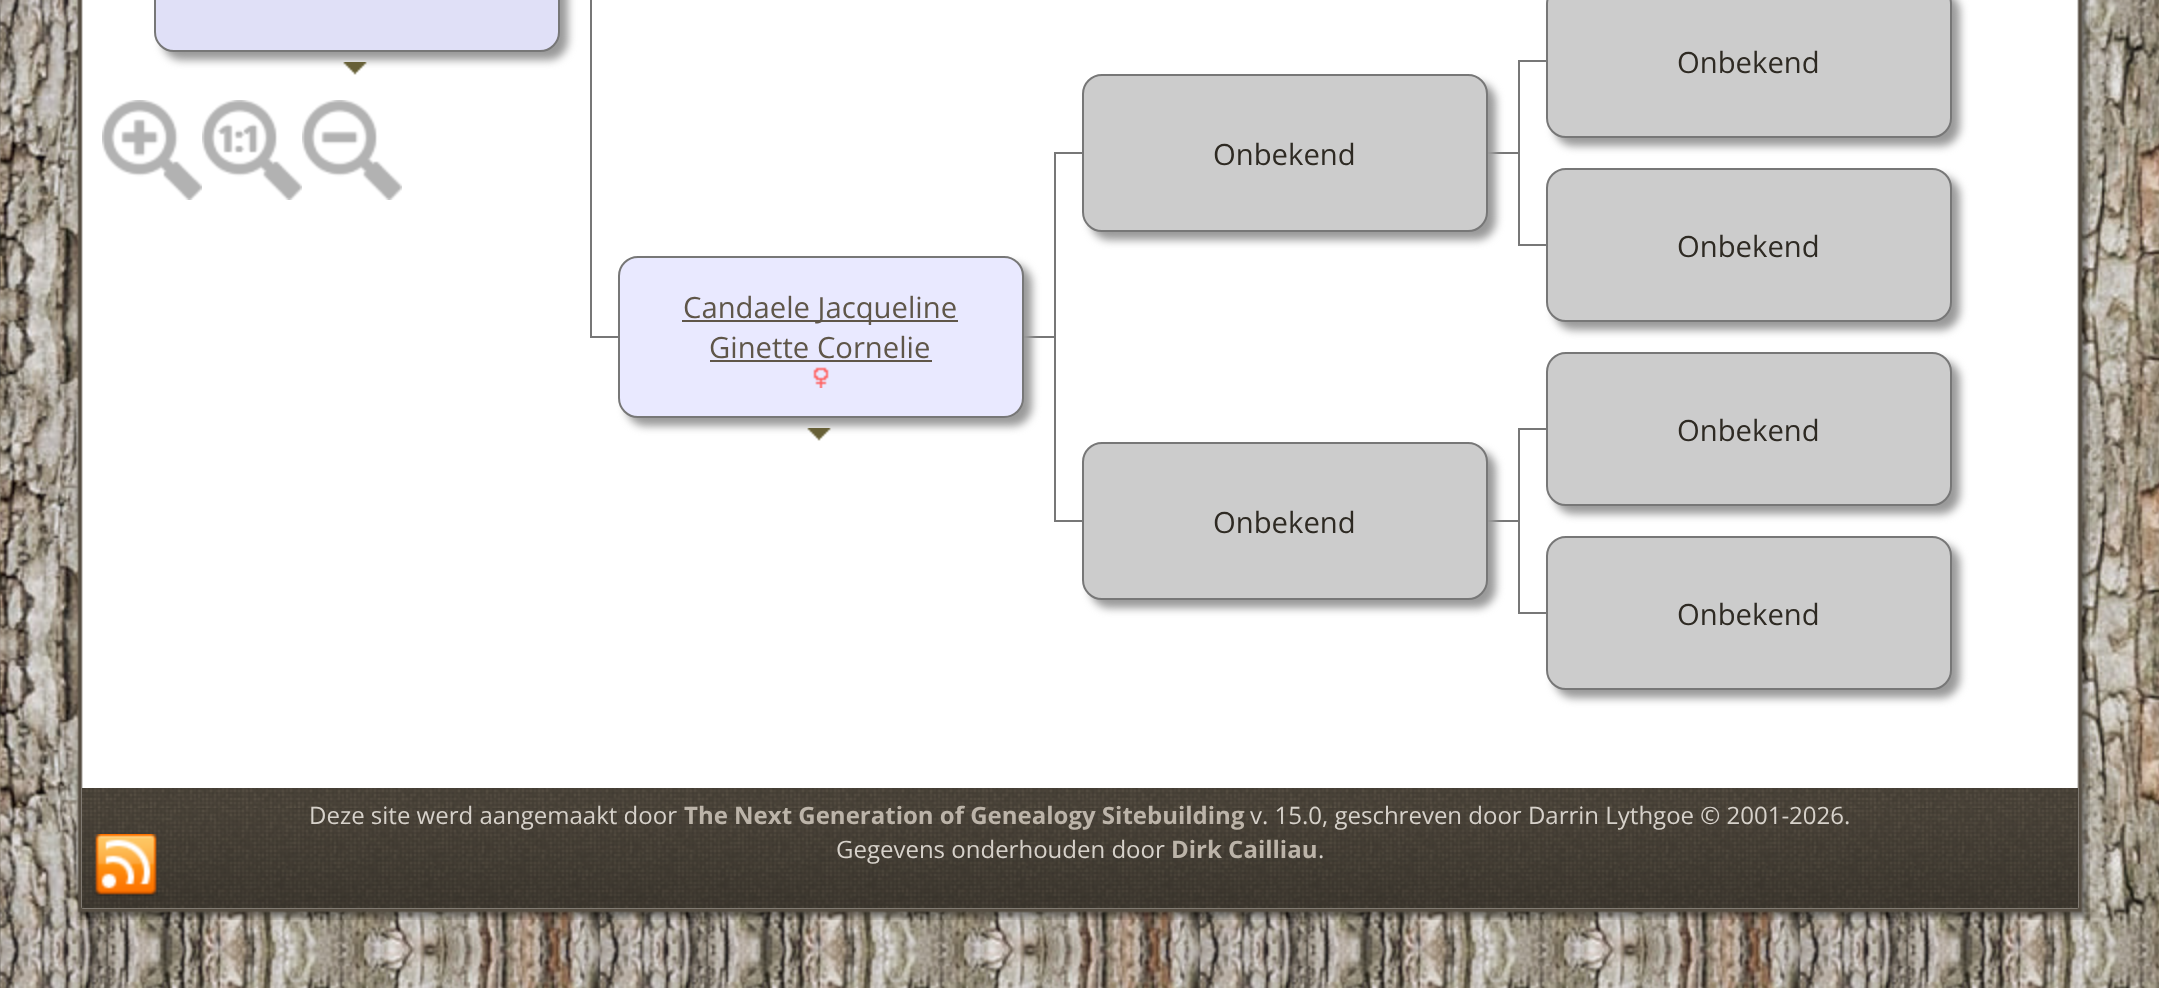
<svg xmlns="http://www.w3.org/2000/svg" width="2159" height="988">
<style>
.a{font:29.25px Open Sans;fill:#2e2a23}
.b{font:29.25px Open Sans;fill:#5f5649}
.c{font:24px Open Sans;fill:#d7d2cb}
.d{font:bold 24px Open Sans;fill:#bcb4a9}
</style>
<rect width="100%" height="100%" fill="#fff"/>
<image href="1.png" x="0" y="0" width="2159" height="988"/>
<image href="2.png" x="75" y="0" width="31" height="884"/>
<path fill="#fff" d="M106 0h1948v788H106z"/>
<image href="3.png" x="2054" y="0" width="36" height="884"/>
<image href="4.png" x="102" y="100" width="100" height="100"/>
<image href="5.png" x="202" y="100" width="100" height="100"/>
<image href="6.png" x="302" y="100" width="100" height="100"/>
<rect fill="#999" filter="blur(4px)" x="162" y="-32" width="406" height="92" rx="20"/>
<rect fill="#e0e0f7" stroke="#777" stroke-width="2" x="155" y="-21" width="404" height="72" rx="19"/>
<image href="7.png" x="343" y="62" width="24" height="13"/>
<path fill="#777" d="M590 336h34v2H590z"/>
<path fill="#777" d="M590 0h2v338H590z"/>
<path fill="#777" d="M1518 60h34v2H1518z"/>
<rect fill="#999" filter="blur(4px)" x="1554" y="-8" width="406" height="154" rx="20"/>
<rect fill="#ccc" stroke="#777" stroke-width="2" x="1547" y="-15" width="404" height="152" rx="19"/>
<path fill="#777" d="M1054 152h34v2H1054z"/>
<path fill="#777" d="M1486 152h32v2H1486z"/>
<rect fill="#999" filter="blur(4px)" x="1090" y="82" width="406" height="158" rx="20"/>
<rect fill="#ccc" stroke="#777" stroke-width="2" x="1083" y="75" width="404" height="156" rx="19"/>
<path fill="#777" d="M1518 60h2v94H1518z"/>
<path fill="#777" d="M1054 152h2v186H1054z"/>
<path fill="#777" d="M1518 244h34v2H1518z"/>
<path fill="#777" d="M1518 154h2v92H1518z"/>
<rect fill="#999" filter="blur(4px)" x="1554" y="176" width="406" height="154" rx="20"/>
<rect fill="#ccc" stroke="#777" stroke-width="2" x="1547" y="169" width="404" height="152" rx="19"/>
<path fill="#777" d="M1022 336h32v2H1022z"/>
<rect fill="#999" filter="blur(4px)" x="626" y="264" width="406" height="162" rx="20"/>
<rect fill="#e9e9ff" stroke="#777" stroke-width="2" x="619" y="257" width="404" height="160" rx="19"/>
<path fill="#5f5649" d="M682 320h276v2H682z"/>
<path fill="#5f5649" d="M710 360h222v2H710z"/>
<image href="8.png" x="813" y="367" width="16" height="21"/>
<image href="7.png" x="807" y="428" width="24" height="13"/>
<path fill="#777" d="M1054 520h34v2H1054z"/>
<path fill="#777" d="M1054 338h2v184H1054z"/>
<path fill="#777" d="M1518 428h34v2H1518z"/>
<rect fill="#999" filter="blur(4px)" x="1554" y="360" width="406" height="154" rx="20"/>
<rect fill="#ccc" stroke="#777" stroke-width="2" x="1547" y="353" width="404" height="152" rx="19"/>
<path fill="#777" d="M1486 520h32v2H1486z"/>
<rect fill="#999" filter="blur(4px)" x="1090" y="450" width="406" height="158" rx="20"/>
<rect fill="#ccc" stroke="#777" stroke-width="2" x="1083" y="443" width="404" height="156" rx="19"/>
<path fill="#777" d="M1518 428h2v94H1518z"/>
<path fill="#777" d="M1518 612h34v2H1518z"/>
<path fill="#777" d="M1518 522h2v92H1518z"/>
<rect fill="#999" filter="blur(4px)" x="1554" y="544" width="406" height="154" rx="20"/>
<rect fill="#ccc" stroke="#777" stroke-width="2" x="1547" y="537" width="404" height="152" rx="19"/>
<image href="9.png" x="82" y="788" width="1996" height="20"/>
<image href="12.png" x="75" y="884" width="31" height="36"/>
<image href="14.png" x="2054" y="884" width="36" height="36"/>
<image href="11.png" x="82" y="808" width="1996" height="100"/>
<image href="10.png" x="94" y="834" width="64" height="62"/>
<image href="13.png" x="106" y="908" width="1948" height="12"/>
<text class="a" x="1677" y="73">Onbekend</text>
<text class="a" x="1213" y="165">Onbekend</text>
<text class="a" x="1677" y="257">Onbekend</text>
<text class="b" x="683" y="318">Candaele Jacqueline</text>
<text class="b" x="709" y="358">Ginette Cornelie</text>
<text class="a" x="1677" y="441">Onbekend</text>
<text class="a" x="1213" y="533">Onbekend</text>
<text class="a" x="1677" y="625">Onbekend</text>
<text class="c" x="309" y="824">Deze site werd aangemaakt door</text>
<text class="d" x="684" y="824">The Next Generation of Genealogy Sitebuilding</text>
<text class="c" x="1250" y="824">v. 15.0, geschreven door Darrin Lythgoe © 2001-2026.</text>
<text class="c" x="836" y="858">Gegevens onderhouden door</text>
<text class="d" x="1171" y="858">Dirk Cailliau</text>
<text class="c" x="1318" y="858">.</text>
</svg>
